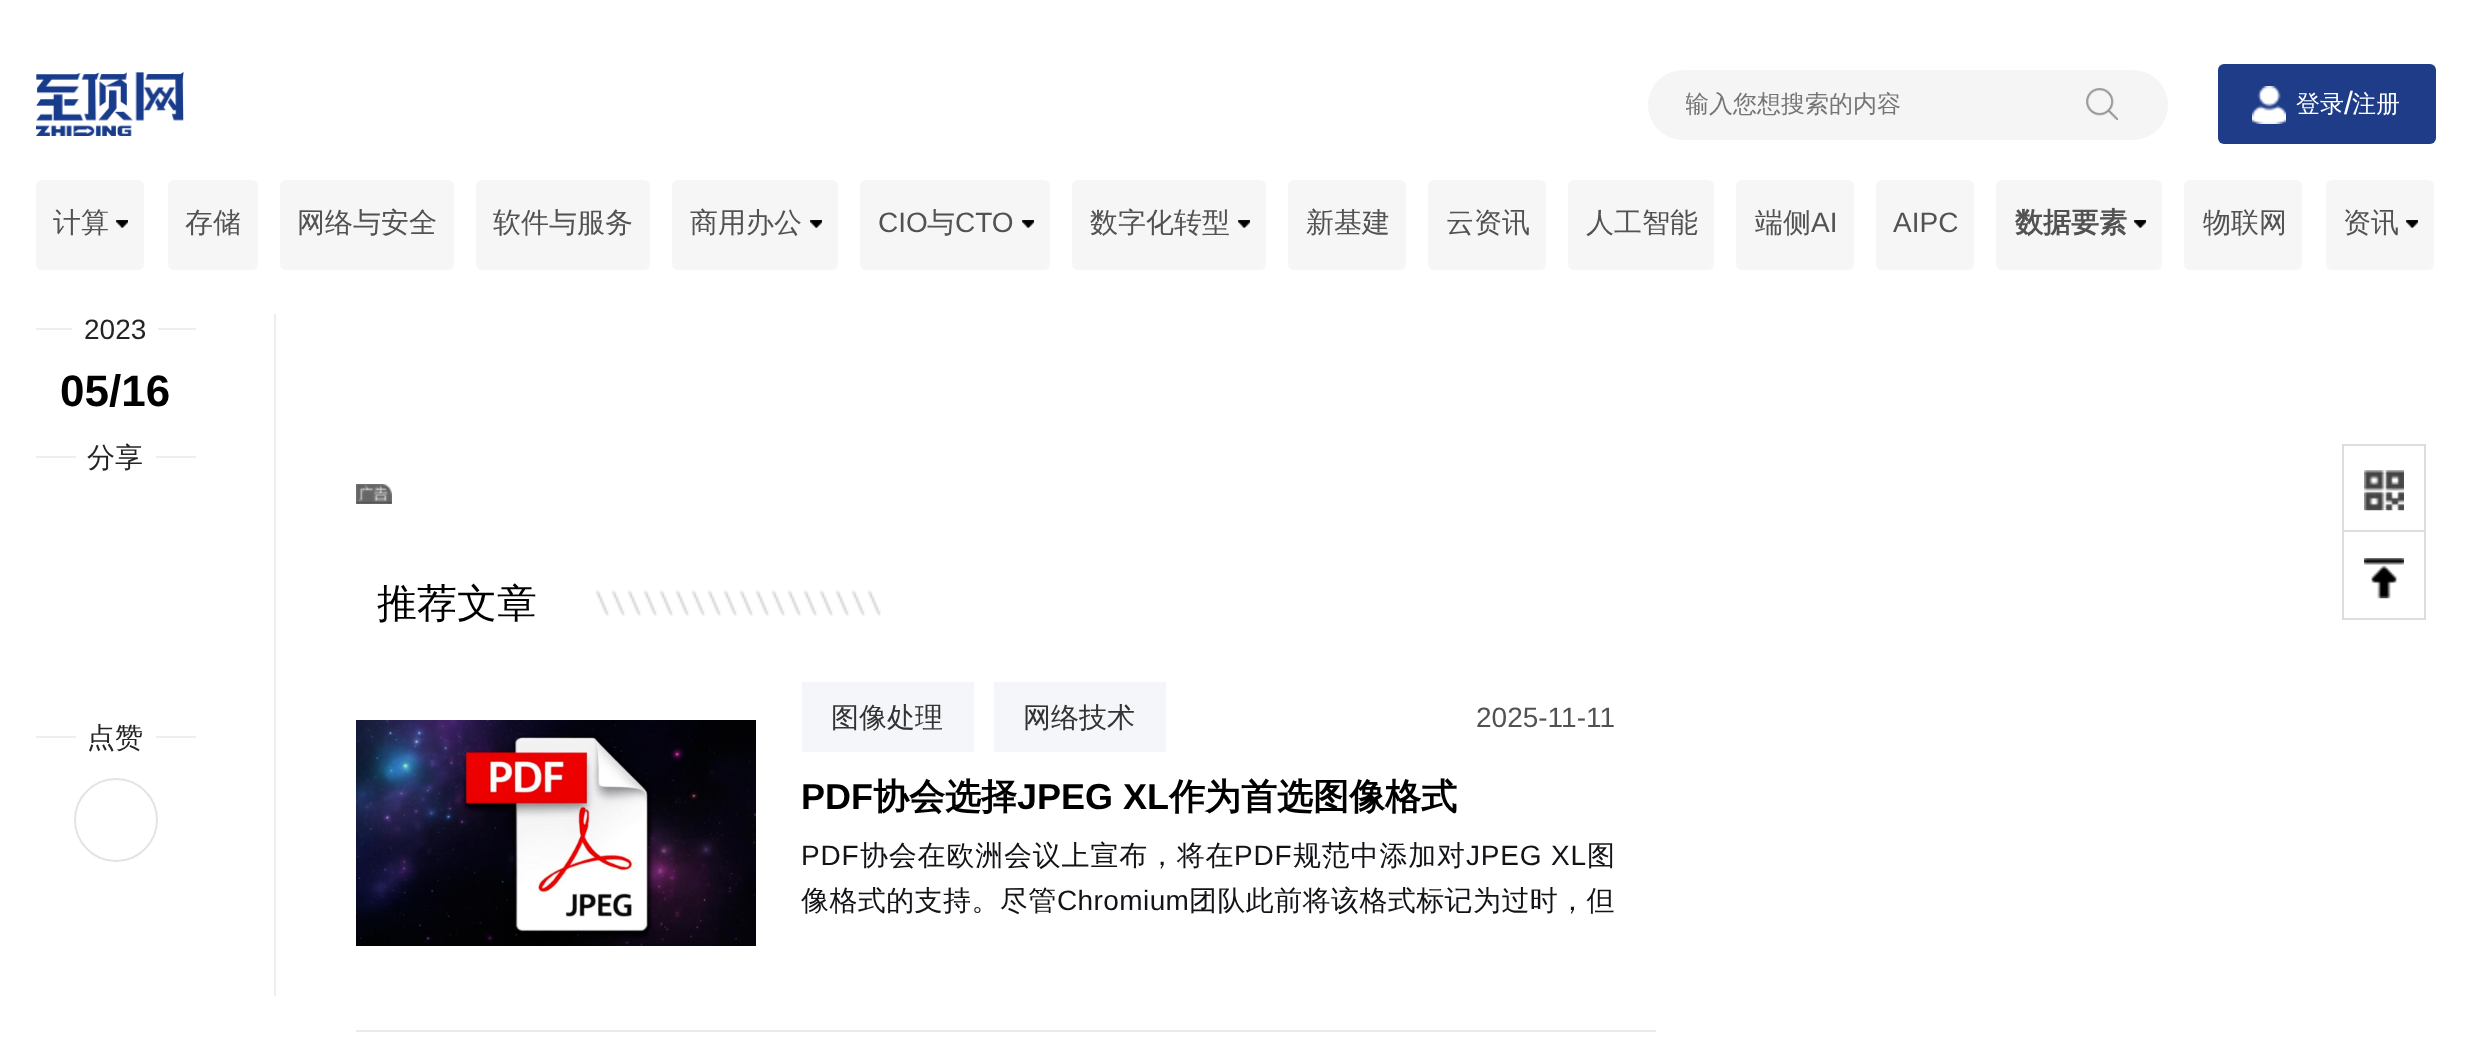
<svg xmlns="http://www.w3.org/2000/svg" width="2470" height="1064">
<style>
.a{font:500 24px WenQuanYi Zen Hei;fill:#757575}
.b{font:500 24px WenQuanYi Zen Hei;fill:#fff}
.c{font:32px Liberation Sans;fill:#fff}
.d{font:500 28px WenQuanYi Zen Hei;fill:#525252}
.e{font:28px Liberation Sans;fill:#525252}
.f{font:bold 28px WenQuanYi Zen Hei;fill:#525252}
.g{font:28px Liberation Sans;fill:#242424}
.h{font:bold 44px Liberation Sans;fill:#000}
.i{font:500 28px WenQuanYi Zen Hei;fill:#242424}
.j{font:500 40px WenQuanYi Zen Hei;fill:#000}
.k{font:500 28px WenQuanYi Zen Hei;fill:#333}
.l{font:bold 36px Liberation Sans;fill:#000}
.m{font:bold 36px WenQuanYi Zen Hei;fill:#000}
.n{font:28px Liberation Sans;letter-spacing:0.8px;fill:#121217}
.o{font:500 28px WenQuanYi Zen Hei;letter-spacing:0.8px;fill:#121217}
.p{font:500 28px WenQuanYi Zen Hei;letter-spacing:0.4px;fill:#121217}
.q{font:28px Liberation Sans;letter-spacing:0.4px;fill:#121217}
</style>
<defs>
<clipPath id="clip1"><path d="M1686 88h370v34H1686z"/></clipPath>
</defs>
<rect width="100%" height="100%" fill="#fff"/>
<image href="1.png" x="36" y="72" width="148" height="64"/>
<rect fill="#f5f5f5" x="1648" y="70" width="520" height="70" rx="35"/>
<image href="2.png" x="2086" y="88" width="32" height="32"/>
<rect fill="#1e3c87" x="2218" y="64" width="218" height="80" rx="6"/>
<image href="3.png" x="2252" y="86" width="34" height="38"/>
<rect fill="#f6f6f6" x="36" y="180" width="108" height="90" rx="6"/>
<image href="4.png" x="116" y="220" width="12" height="8"/>
<rect fill="#f6f6f6" x="168" y="180" width="90" height="90" rx="6"/>
<rect fill="#f6f6f6" x="280" y="180" width="174" height="90" rx="6"/>
<rect fill="#f6f6f6" x="476" y="180" width="174" height="90" rx="6"/>
<rect fill="#f6f6f6" x="672" y="180" width="166" height="90" rx="6"/>
<image href="5.png" x="810" y="220" width="12" height="8"/>
<rect fill="#f6f6f6" x="860" y="180" width="190" height="90" rx="6"/>
<image href="6.png" x="1022" y="220" width="12" height="8"/>
<rect fill="#f6f6f6" x="1072" y="180" width="194" height="90" rx="6"/>
<image href="6.png" x="1238" y="220" width="12" height="8"/>
<rect fill="#f6f6f6" x="1288" y="180" width="118" height="90" rx="6"/>
<rect fill="#f6f6f6" x="1428" y="180" width="118" height="90" rx="6"/>
<rect fill="#f6f6f6" x="1568" y="180" width="146" height="90" rx="6"/>
<rect fill="#f6f6f6" x="1736" y="180" width="118" height="90" rx="6"/>
<rect fill="#f6f6f6" x="1876" y="180" width="98" height="90" rx="6"/>
<rect fill="#f6f6f6" x="1996" y="180" width="166" height="90" rx="6"/>
<image href="5.png" x="2134" y="220" width="12" height="8"/>
<rect fill="#f6f6f6" x="2184" y="180" width="118" height="90" rx="6"/>
<rect fill="#f6f6f6" x="2326" y="180" width="108" height="90" rx="6"/>
<image href="6.png" x="2406" y="220" width="12" height="8"/>
<path fill="#eee" d="M274 314h2v682H274z"/>
<path fill="#eee" d="M36 328h160v2H36z"/>
<path fill="#fff" d="M72 328h86v2H72z"/>
<path fill="#eee" d="M36 456h160v2H36z"/>
<path fill="#fff" d="M76 456h80v2H76z"/>
<path fill="#eee" d="M36 736h160v2H36z"/>
<path fill="#fff" d="M76 736h80v2H76z"/>
<circle fill="none" stroke="#e3e4e4" stroke-width="2" cx="116" cy="820" r="41"/>
<image href="7.png" x="356" y="484" width="36" height="20"/>
<image href="8.png" x="596" y="590" width="285" height="26"/>
<path fill="#e7ecec" d="M356 1030h1300v2H356z"/>
<image href="9.png" x="356" y="720" width="400" height="226"/>
<path fill="#f5f6fa" d="M802 682h172v70H802z"/>
<path fill="#f5f6fa" d="M994 682h172v70H994z"/>
<path fill="none" stroke="#ddd" stroke-width="2" d="M2343 445h82v174H2343z"/>
<path fill="#ddd" d="M2344 530h80v2H2344z"/>
<image href="10.png" x="2364" y="470" width="40" height="41"/>
<image href="11.png" x="2364" y="558" width="40" height="41"/>
<g clip-path="url(#clip1)">
<text class="a" x="1685" y="112">输入您想搜索的内容</text>
</g>
<text class="b" x="2296" y="112">登录</text>
<text class="c" x="2344" y="114">/</text>
<text class="b" x="2352" y="112">注册</text>
<text class="d" x="53" y="232">计算</text>
<text class="d" x="185" y="232">存储</text>
<text class="d" x="297" y="232">网络与安全</text>
<text class="d" x="493" y="232">软件与服务</text>
<text class="d" x="690" y="232">商用办公</text>
<text class="e" x="878" y="232">CIO</text>
<text class="d" x="927" y="232">与</text>
<text class="e" x="955" y="232">CTO</text>
<text class="d" x="1090" y="232">数字化转型</text>
<text class="d" x="1306" y="232">新基建</text>
<text class="d" x="1446" y="232">云资讯</text>
<text class="d" x="1586" y="232">人工智能</text>
<text class="d" x="1755" y="232">端侧</text>
<text class="e" x="1811" y="232">AI</text>
<text class="e" x="1893" y="232">AIPC</text>
<text class="f" x="2015" y="232">数据要素</text>
<text class="d" x="2203" y="232">物联网</text>
<text class="d" x="2343" y="232">资讯</text>
<text class="g" x="84" y="339">2023</text>
<text class="h" x="60" y="406">05/16</text>
<text class="i" x="87" y="467">分享</text>
<text class="i" x="87" y="747">点赞</text>
<text class="j" x="377" y="617">推荐文章</text>
<text class="k" x="831" y="727">图像处理</text>
<text class="k" x="1023" y="727">网络技术</text>
<text class="e" x="1476" y="727">2025-11-11</text>
<text class="l" x="801" y="809">PDF</text>
<text class="m" x="873" y="809">协会选择</text>
<text class="l" x="1017" y="809">JPEG XL</text>
<text class="m" x="1169" y="809">作为首选图像格式</text>
<text class="n" x="801" y="865">PDF</text>
<text class="o" x="860" y="865">协会在欧洲会议上宣布，将在</text>
<text class="n" x="1234" y="865">PDF</text>
<text class="o" x="1293" y="865">规范中添加对</text>
<text class="n" x="1466" y="865">JPEG XL</text>
<text class="o" x="1587" y="865">图</text>
<text class="p" x="801" y="910">像格式的支持。尽管</text>
<text class="q" x="1057" y="910">Chromium</text>
<text class="p" x="1189" y="910">团队此前将该格式标记为过时，但</text>
</svg>
